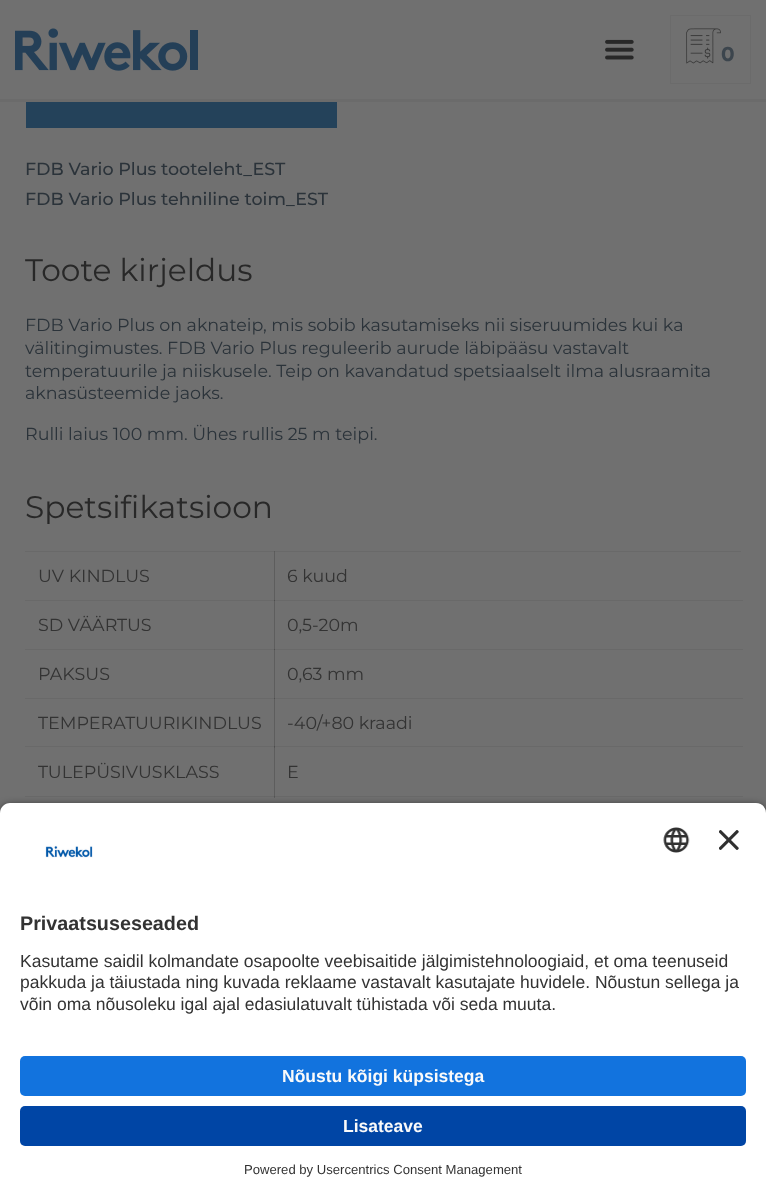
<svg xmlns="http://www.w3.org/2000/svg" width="766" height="1196">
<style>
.a{font:bold 20px Montserrat;fill:#3c454d}
.b{font:500 17.5px Montserrat;fill:#2b333a}
.c{font:31.25px Montserrat;fill:#282828}
.d{font:17.5px Montserrat;fill:#2b333a}
.e{font:17.5px Montserrat;fill:#333}
.f{font:bold 19.75px Liberation Sans;fill:#333}
.g{font:17.5px Liberation Sans;fill:#333}
.h{font:bold 17.5px Liberation Sans;fill:#fafafa}
.i{font:13.1px Liberation Sans;fill:#333}
</style>
<rect width="100%" height="100%" fill="#707070"/>
<path fill="#696969" d="M25 600h250v1H25z"/>
<path fill="#5d5d5d" d="M274 551h1v50H274z"/>
<path fill="#696969" d="M274 600h469v1H274z"/>
<path fill="#696969" d="M25 649h250v1H25z"/>
<path fill="#5d5d5d" d="M274 600h1v50H274z"/>
<path fill="#4d4d4d" d="M274 600h1v1H274z"/>
<path fill="#696969" d="M274 649h469v1H274z"/>
<path fill="#696969" d="M25 698h250v1H25z"/>
<path fill="#5d5d5d" d="M274 649h1v50H274z"/>
<path fill="#4d4d4d" d="M274 649h1v1H274z"/>
<path fill="#696969" d="M274 698h469v1H274z"/>
<path fill="#696969" d="M25 746h250v1H25z"/>
<path fill="#5d5d5d" d="M274 698h1v50H274z"/>
<path fill="#4d4d4d" d="M274 698h1v1H274z"/>
<path fill="#696969" d="M274 746h469v1H274z"/>
<path fill="#696969" d="M25 796h250v1H25z"/>
<path fill="#5d5d5d" d="M274 746h1v52H274z"/>
<path fill="#545454" d="M274 746h1v2H274z"/>
<path fill="#4d4d4d" d="M274 746h1v1H274z"/>
<path fill="#6b6b6b" d="M0 99h766v3H0z"/>
<image href="1.png" x="15" y="28" width="183" height="43"/>
<image href="2.png" x="605" y="39" width="29" height="21"/>
<path fill="none" stroke="#6b6b6b" d="M670.5 15.5h80v68H670.5z"/>
<image href="3.png" x="686" y="28" width="35" height="36"/>
<path fill="#24425a" d="M26 102h311v26H26z"/>
<path fill="#696969" d="M25 551h716v1H25z"/>
<path fill="#595959" d="M274 551h1v1H274z"/>
<path fill="#696969" d="M274 796h469v1H274z"/>
<path fill="#545454" d="M274 796h1v1H274z"/>
<rect fill="#000000cc" filter="blur(4.5px)" y="806" width="766" height="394" rx="10"/>
<path fill="#fff" d="M10 803h746c5.5 0 10 4.5 10 10v228h-766v-228c0-5.5 4.5-10 10-10z"/>
<image href="4.png" x="45" y="845" width="48" height="13"/>
<image href="5.png" x="663" y="827" width="27" height="26"/>
<image href="6.png" x="719" y="830" width="20" height="20"/>
<path fill="#fff" d="M0 1041h766v155H0z"/>
<rect fill="#1273de" x="20" y="1056" width="726" height="40" rx="5"/>
<rect fill="#0045a5" x="20" y="1106" width="726" height="40" rx="5"/>
<text class="a" x="721" y="61">0</text>
<text class="b" x="25" y="175">FDB Vario Plus tooteleht_EST</text>
<text class="b" x="25" y="205">FDB Vario Plus tehniline toim_EST</text>
<text class="c" x="25" y="281">Toote kirjeldus</text>
<text class="d" x="25" y="331">FDB Vario Plus on aknateip, mis sobib kasutamiseks nii siseruumides kui ka</text>
<text class="d" x="25" y="354">välitingimustes. FDB Vario Plus reguleerib aurude läbipääsu vastavalt</text>
<text class="d" x="25" y="377">temperatuurile ja niiskusele. Teip on kavandatud spetsiaalselt ilma alusraamita</text>
<text class="d" x="25" y="399">aknasüsteemide jaoks.</text>
<text class="d" x="25" y="440">Rulli laius 100 mm. Ühes rullis 25 m teipi.</text>
<text class="c" x="25" y="518">Spetsifikatsioon</text>
<text class="e" x="38" y="582">UV KINDLUS</text>
<text class="e" x="287" y="582">6 kuud</text>
<text class="e" x="38" y="631">SD VÄÄRTUS</text>
<text class="e" x="287" y="631">0,5-20m</text>
<text class="e" x="38" y="680">PAKSUS</text>
<text class="e" x="287" y="680">0,63 mm</text>
<text class="e" x="38" y="729">TEMPERATUURIKINDLUS</text>
<text class="e" x="287" y="729">-40/+80 kraadi</text>
<text class="e" x="38" y="778">TULEPÜSIVUSKLASS</text>
<text class="e" x="287" y="778">E</text>
<text class="f" x="20" y="930">Privaatsuseseaded</text>
<text class="g" x="20" y="967">Kasutame saidil kolmandate osapoolte veebisaitide jälgimistehnoloogiaid, et oma teenuseid</text>
<text class="g" x="20" y="988">pakkuda ja täiustada ning kuvada reklaame vastavalt kasutajate huvidele. Nõustun sellega ja</text>
<text class="g" x="20" y="1010">võin oma nõusoleku igal ajal edasiulatuvalt tühistada või seda muuta.</text>
<text class="h" x="282" y="1082">Nõustu kõigi küpsistega</text>
<text class="h" x="343" y="1132">Lisateave</text>
<text class="i" x="244" y="1174">Powered by Usercentrics Consent Management</text>
</svg>
